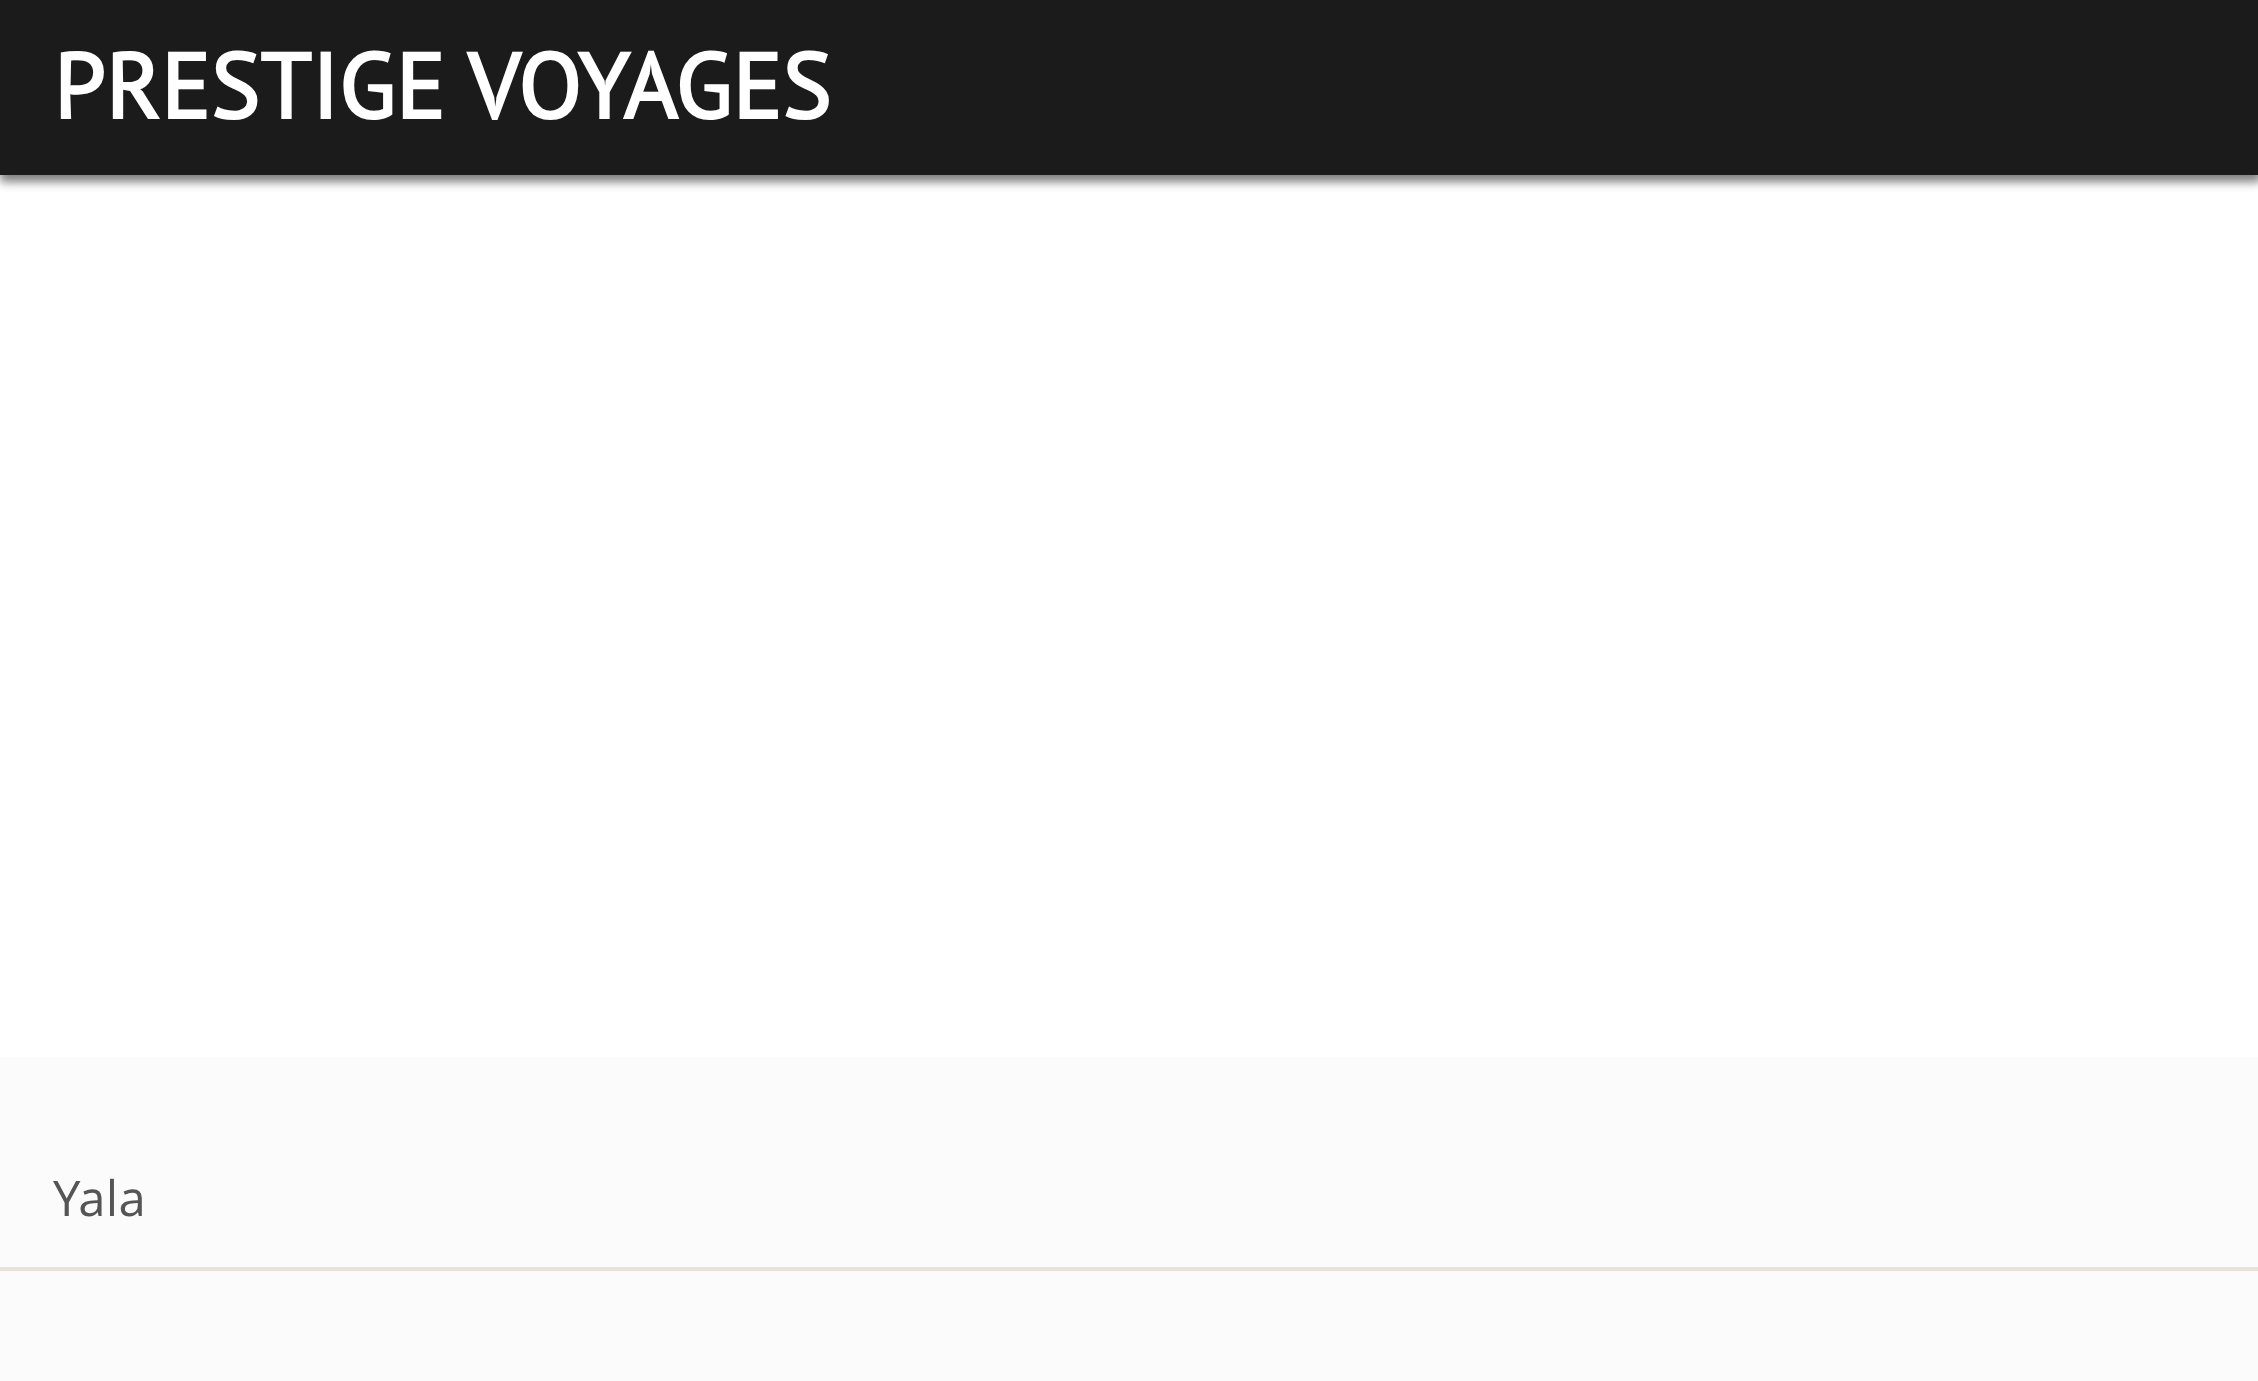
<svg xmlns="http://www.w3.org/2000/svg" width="2258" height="1381">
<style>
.a{font:bold 92.5px PT Sans;letter-spacing:0.25px;fill:#fff}
.b{font:49px Open Sans;letter-spacing:0.25px;fill:#555}
</style>
<rect width="100%" height="100%" fill="#fbfbfb"/>
<path fill="#fff" d="M0 175h2258v882H0z"/>
<path fill="#00000080" filter="blur(5px)" d="M0 7h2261v175H0z"/>
<path fill="#1b1b1b" d="M0 0h2258v175H0z"/>
<path fill="#e7e2d8" d="M0 1267h2258v4H0z"/>
<text class="a" x="53" y="119">PRESTIGE VOYAGES</text>
<text class="b" x="53" y="1216">Yala</text>
</svg>
